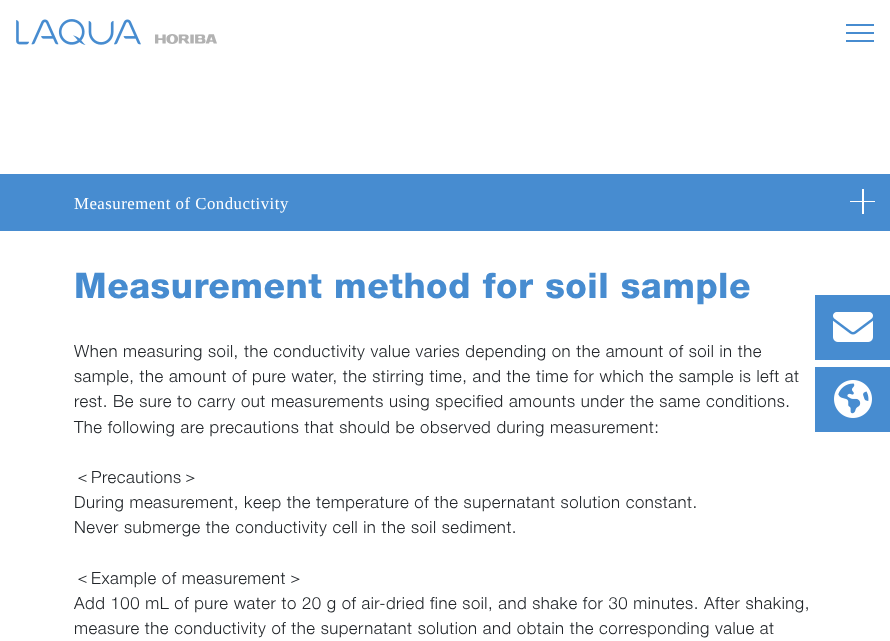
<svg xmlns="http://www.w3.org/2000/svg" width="890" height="641">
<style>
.a{font:16.8px Liberation Serif;letter-spacing:0.5px;fill:#fff}
.b{font:bold 35.25px Helvetica Neue;letter-spacing:0.5px;fill:#478cd0}
.c{font:300 16.8px Helvetica Neue;letter-spacing:0.5px;fill:#212529}
.d{font:500 16.8px WenQuanYi Zen Hei;letter-spacing:0.5px;fill:#212529}
</style>
<rect width="100%" height="100%" fill="#fff"/>
<image href="1.png" x="16" y="19" width="125" height="26"/>
<image href="2.png" x="155" y="34" width="62" height="10"/>
<path fill="#478cd0" d="M846 24h28v2H846z"/>
<path fill="#478cd0" d="M846 40h28v2H846z"/>
<path fill="#478cd0" d="M846 32h28v2H846z"/>
<path fill="#478cd0" d="M0 174h890v57H0z"/>
<path fill="#fff" d="M850 201h25v1H850z"/>
<path fill="#fff" d="M862 189h2v25H862z"/>
<path fill="#478cd0" d="M815 295h75v65H815z"/>
<image href="3.png" x="833" y="312" width="40" height="30"/>
<path fill="#478cd0" d="M815 367h75v65H815z"/>
<image href="4.png" x="834" y="380" width="38" height="38"/>
<text class="a" x="74" y="209">Measurement of Conductivity</text>
<text class="b" x="74" y="298">Measurement method for soil sample</text>
<text class="c" x="74" y="357">When measuring soil, the conductivity value varies depending on the amount of soil in the</text>
<text class="c" x="74" y="382">sample, the amount of pure water, the stirring time, and the time for which the sample is left at</text>
<text class="c" x="74" y="407">rest. Be sure to carry out measurements using specified amounts under the same conditions.</text>
<text class="c" x="74" y="433">The following are precautions that should be observed during measurement:</text>
<text class="d" x="74" y="483">＜</text>
<text class="c" x="91" y="483">Precautions</text>
<text class="d" x="182" y="483">＞</text>
<text class="c" x="74" y="508">During measurement, keep the temperature of the supernatant solution constant.</text>
<text class="c" x="74" y="533">Never submerge the conductivity cell in the soil sediment.</text>
<text class="d" x="74" y="584">＜</text>
<text class="c" x="91" y="584">Example of measurement</text>
<text class="d" x="287" y="584">＞</text>
<text class="c" x="74" y="609">Add 100 mL of pure water to 20 g of air-dried fine soil, and shake for 30 minutes. After shaking,</text>
<text class="c" x="74" y="634">measure the conductivity of the supernatant solution and obtain the corresponding value at</text>
</svg>
